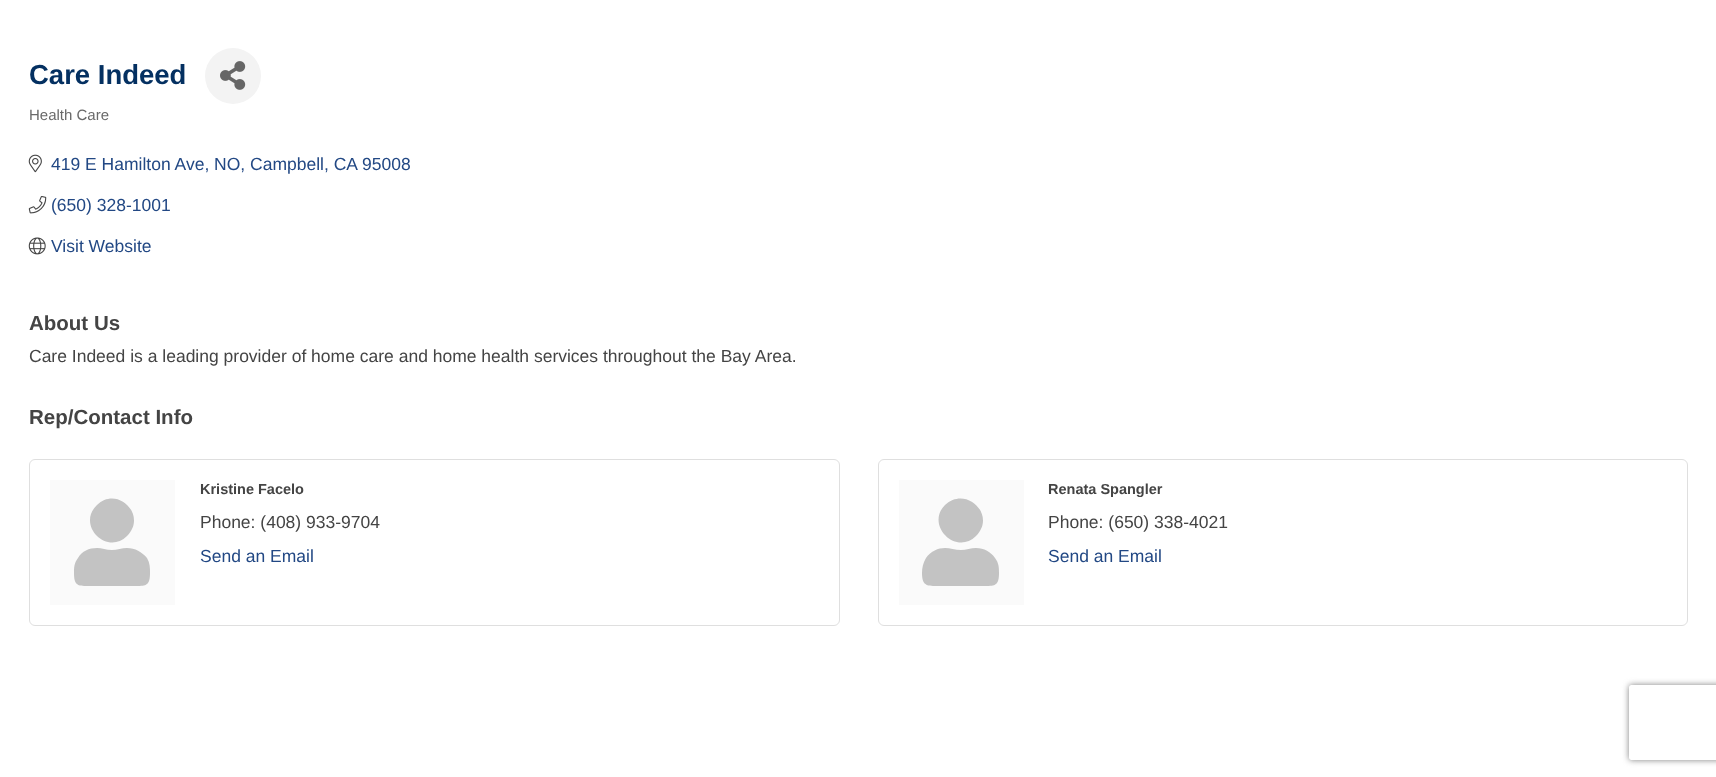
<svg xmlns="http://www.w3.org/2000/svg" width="1716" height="777">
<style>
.a{font:bold 27.5px Liberation Sans;fill:#043061}
.b{font:15px Liberation Sans;fill:#696969}
.c{font:17.5px Liberation Sans;fill:#224884}
.d{font:bold 20.5px Liberation Sans;fill:#444}
.e{font:17.5px Liberation Sans;fill:#444}
.f{font:bold 14.5px Liberation Sans;fill:#444}
</style>
<defs>
<clipPath id="clip1"><path d="M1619 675h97v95h-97zm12.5 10h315c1.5 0 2.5 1 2.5 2.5v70c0 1.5-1 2.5-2.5 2.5h-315c-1.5 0-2.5-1-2.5-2.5v-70c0-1.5 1-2.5 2.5-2.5z" clip-rule="evenodd"/></clipPath>
</defs>
<rect width="100%" height="100%" fill="#fff"/>
<circle fill="#f3f3f3" cx="233" cy="76" r="28"/>
<image href="1.png" x="220" y="61" width="26" height="29"/>
<image href="2.png" x="28" y="154" width="14" height="19"/>
<image href="3.png" x="28" y="196" width="19" height="18"/>
<image href="4.png" x="28" y="237" width="18" height="18"/>
<rect fill="none" stroke="#dfdfdf" x="29.5" y="459.5" width="810" height="166" rx="5.5"/>
<path fill="#fafafa" d="M50 480h125v125H50z"/>
<path fill="#c3c3c3" d="M127 536c-20 20-51-11-30-31c20-20 51 10 30 31zm0 12c8 0 15 4 20 10c3 5 3 10 3 15c0 14-5 13-18 13h-40c-13 0-18 1-18-13c0-5 0-10 4-15c4-7 11-10 19-10c5 0 9 2 15 2c5 0 10-2 15-2z"/>
<rect fill="none" stroke="#dfdfdf" x="878.5" y="459.5" width="809" height="166" rx="5.5"/>
<path fill="#fafafa" d="M899 480h125v125H899z"/>
<path fill="#c3c3c3" d="M976 536c-20 20-51-11-31-31c21-20 52 10 31 31zm0 12c8 0 15 4 19 10c4 5 4 10 4 15c0 14-5 13-18 13h-40c-13 0-19 1-19-13c0-5 1-10 4-15c5-7 12-10 19-10c5 0 10 2 16 2c5 0 10-2 15-2z"/>
<g clip-path="url(#clip1)">
<rect fill="#808080" filter="blur(3px)" x="1629" y="685" width="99" height="75" rx="2.5"/>
</g>
<text class="a" x="29" y="84">Care Indeed</text>
<text class="b" x="29" y="120">Health Care</text>
<text class="c" x="51" y="170">419 E Hamilton Ave, NO, Campbell, CA</text>
<text class="c" x="362" y="170">95008</text>
<text class="c" x="51" y="211">(650) 328-1001</text>
<text class="c" x="51" y="252">Visit Website</text>
<text class="d" x="29" y="330">About Us</text>
<text class="e" x="29" y="362">Care Indeed is a leading provider of home care and home health services throughout the Bay Area.</text>
<text class="d" x="29" y="424">Rep/Contact Info</text>
<text class="f" x="200" y="494">Kristine Facelo</text>
<text class="e" x="200" y="528">Phone: (408) 933-9704</text>
<text class="c" x="200" y="562">Send an Email</text>
<text class="f" x="1048" y="494">Renata Spangler</text>
<text class="e" x="1048" y="528">Phone: (650) 338-4021</text>
<text class="c" x="1048" y="562">Send an Email</text>
</svg>
